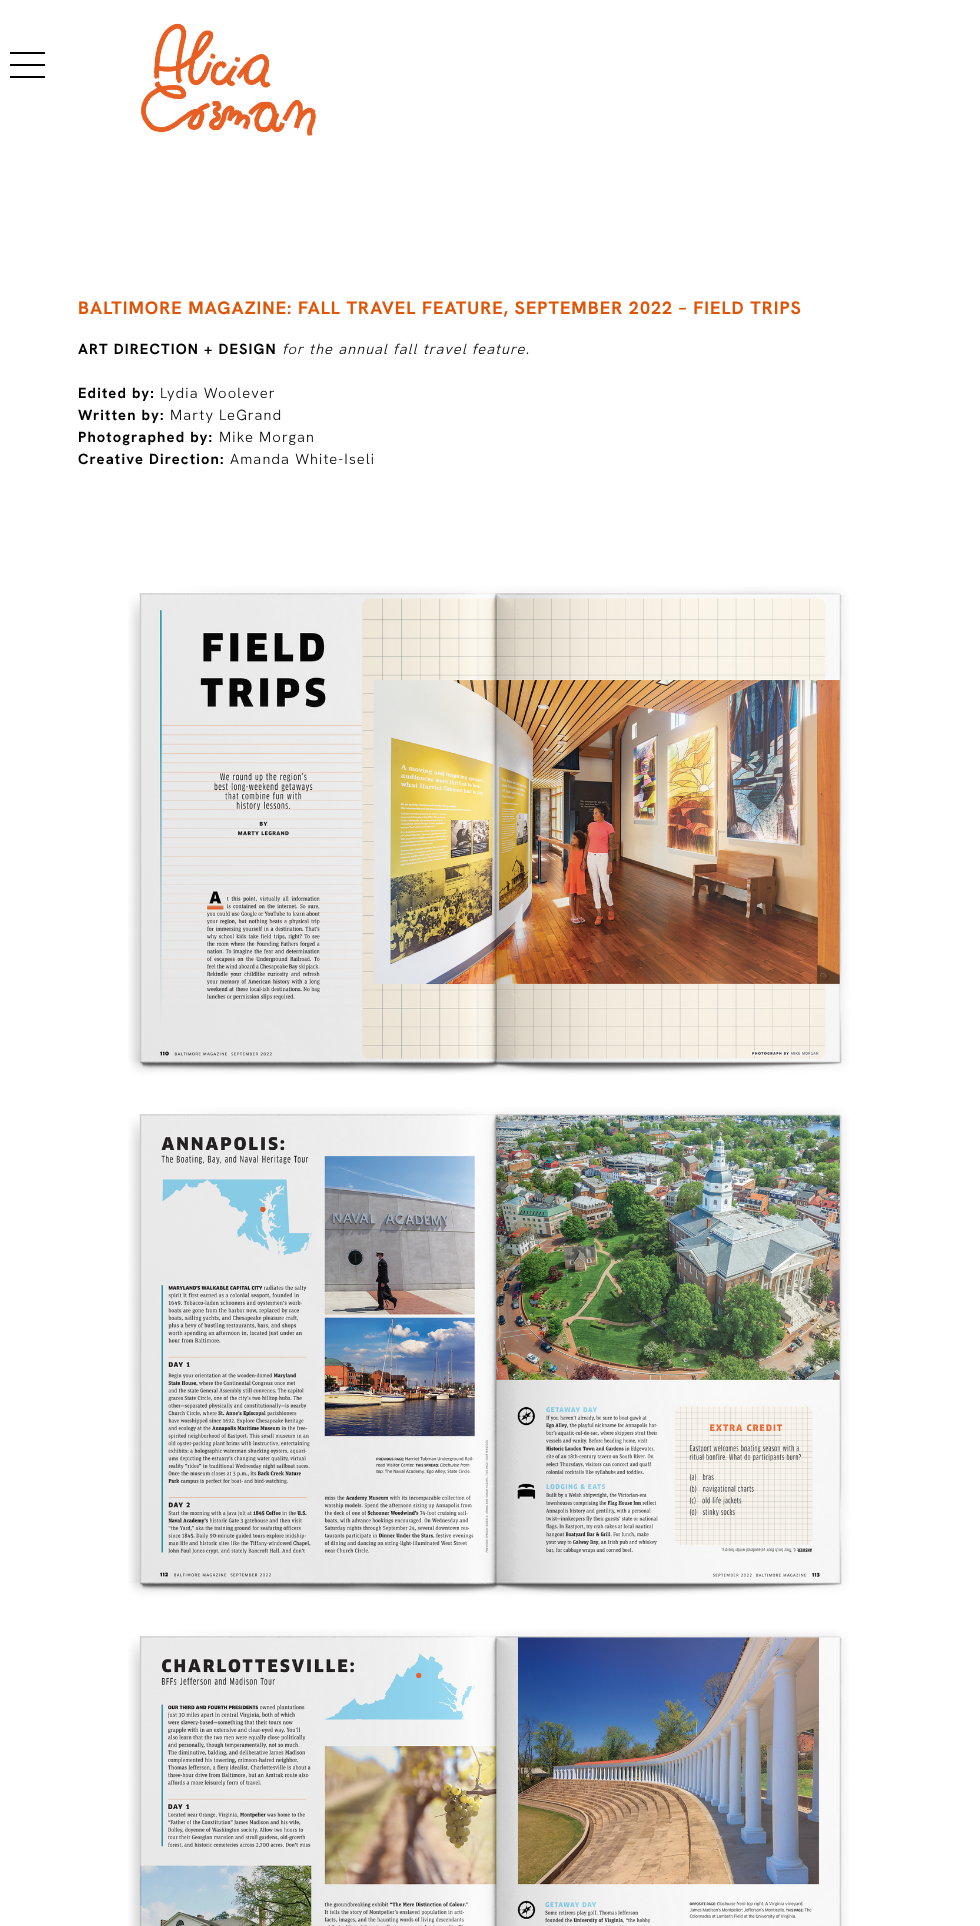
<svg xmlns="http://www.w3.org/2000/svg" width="980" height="1926">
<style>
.a{font:bold 18px Hanken Grotesk;letter-spacing:1px;fill:#e05406}
.b{font:bold 14.7px Hanken Grotesk;letter-spacing:1.15px;fill:#000}
.c{font:italic 300 14.7px Hanken Grotesk;letter-spacing:1.15px;fill:#000}
.d{font:300 14.7px Hanken Grotesk;letter-spacing:1.15px;fill:#000}
</style>
<rect width="100%" height="100%" fill="#fff"/>
<path fill="#000" d="M10 52h35v2H10z"/>
<path fill="#000" d="M10 64h35v2H10z"/>
<path fill="#000" d="M10 76h35v2H10z"/>
<image href="1.png" x="141" y="23" width="175" height="113"/>
<image href="2.png" x="128" y="586" width="722" height="489"/>
<image href="3.png" x="128" y="1107" width="722" height="489"/>
<image href="4.png" x="128" y="1629" width="721" height="297"/>
<text class="a" x="78" y="314">BALTIMORE MAGAZINE: FALL TRAVEL FEATURE, SEPTEMBER 2022 – FIELD TRIPS</text>
<text class="b" x="78" y="354">ART DIRECTION + DESIGN</text>
<text class="c" x="282" y="354">for the annual fall travel feature.</text>
<text class="b" x="78" y="398">Edited by:</text>
<text class="d" x="160" y="398">Lydia Woolever</text>
<text class="b" x="78" y="420">Written by:</text>
<text class="d" x="170" y="420">Marty LeGrand</text>
<text class="b" x="78" y="442">Photographed by:</text>
<text class="d" x="219" y="442">Mike Morgan</text>
<text class="b" x="78" y="464">Creative Direction:</text>
<text class="d" x="230" y="464">Amanda White-Iseli</text>
</svg>
